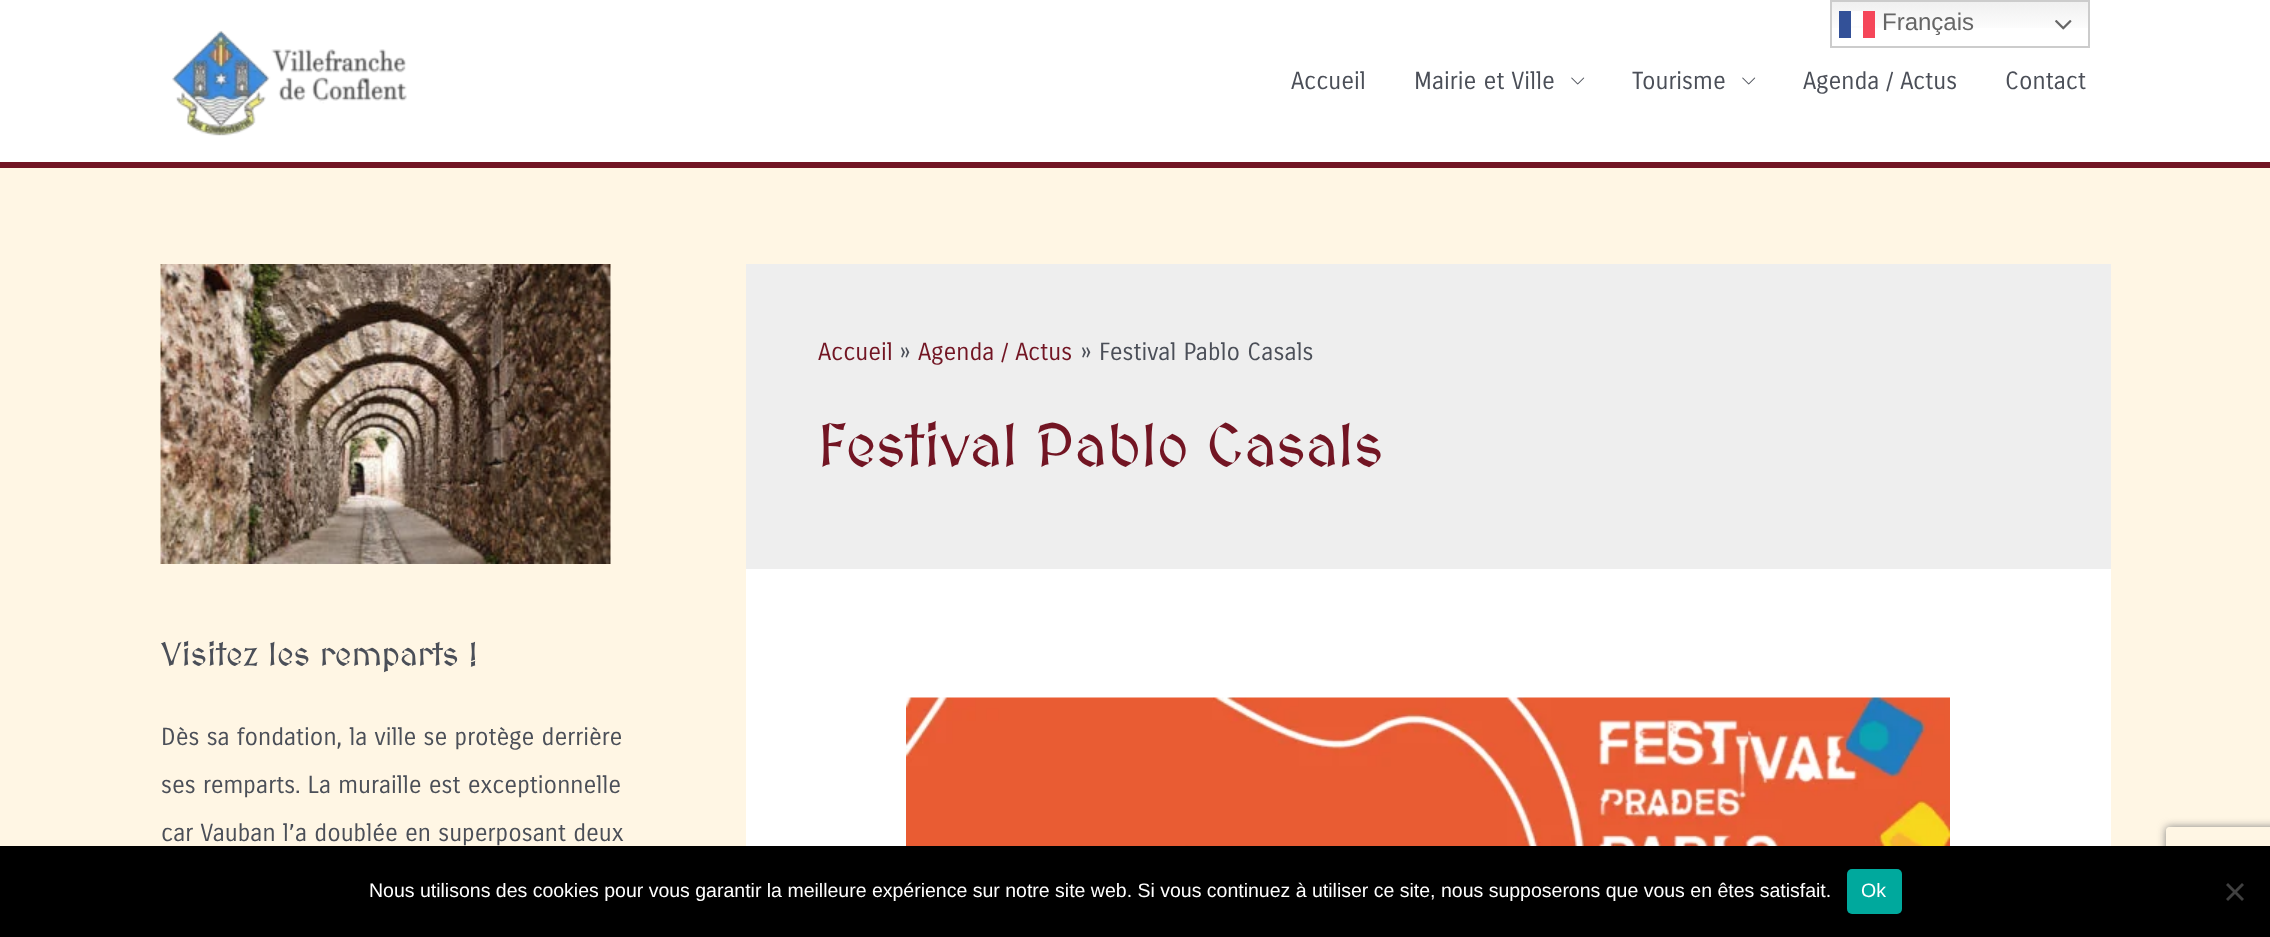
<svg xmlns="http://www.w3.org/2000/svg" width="2270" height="937">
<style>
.a{font:24px Liberation Sans;fill:#666}
.b{font:24px Carrois Gothic;fill:#4b4f58}
.c{font:24px Carrois Gothic;fill:#721523}
.d{font:500 60px MedievalSharp;fill:#721523}
.e{font:500 33px MedievalSharp;fill:#4b4f58}
.f{font:19.5px Liberation Sans;fill:#fff}
</style>
<defs>
<linearGradient id="g1" gradientUnits="userSpaceOnUse" x1="1960" y1="0" x2="1960" y2="48"><stop offset="0" stop-color="#efefef"/><stop offset="0.7" stop-color="#fff"/></linearGradient>
<linearGradient id="g2" gradientUnits="userSpaceOnUse" x1="1960" y1="0" x2="1960" y2="48"><stop offset="0" stop-color="#fcfcfc"/><stop offset="0.7" stop-color="#fff"/></linearGradient>
<clipPath id="clip1"><path d="M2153 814h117v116h-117zm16 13h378c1.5 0 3 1.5 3 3v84c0 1.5-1.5 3-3 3h-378c-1.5 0-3-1.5-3-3v-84c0-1.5 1.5-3 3-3z" clip-rule="evenodd"/></clipPath>
</defs>
<rect width="100%" height="100%" fill="#fff6e4"/>
<path fill="#fff" d="M0 0h2270v162H0z"/>
<path fill="url(#g1)" d="M1832 2h256v26H1832z"/>
<path fill="url(#g2)" d="M1851 11h12v15H1851z"/>
<path fill="none" stroke="#ccc" stroke-width="2" d="M1831 1h258v46H1831z"/>
<path fill="#335198" d="M1839 11h12v27H1839z"/>
<path fill="#f54659" d="M1863 11h12v27H1863z"/>
<image href="1.png" x="2055" y="20" width="17" height="10"/>
<path fill="#721523" d="M0 162h2270v6H0z"/>
<image href="2.png" x="172" y="30" width="235" height="106"/>
<image href="3.png" x="1571" y="77" width="14" height="8"/>
<image href="3.png" x="1742" y="77" width="14" height="8"/>
<path fill="#eee" d="M746 264h1365v305H746z"/>
<path fill="#fff" d="M746 569h1365v277H746z"/>
<image href="4.png" x="906" y="697" width="1044" height="149"/>
<image href="5.png" x="160" y="264" width="451" height="300"/>
<g clip-path="url(#clip1)">
<rect fill="#808080" filter="blur(4px)" x="2166" y="827" width="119" height="90" rx="3"/>
</g>
<path fill="#000" d="M0 846h2270v91H0z"/>
<rect fill="#00a99d" x="1847" y="869" width="55" height="45" rx="5"/>
<path fill="#404040" d="M2242 883l2 2l-16 16l-2-2z"/>
<path fill="#404040" d="M2226 885l2-2l16 16l-2 2z"/>
<text class="a" x="1882" y="30">Français</text>
<text class="b" x="1291" y="89">Accueil</text>
<text class="b" x="1414" y="89">Mairie et Ville</text>
<text class="b" x="1632" y="89">Tourisme</text>
<text class="b" x="1803" y="89">Agenda / Actus</text>
<text class="b" x="2005" y="89">Contact</text>
<text class="c" x="818" y="360">Accueil</text>
<text class="b" x="899" y="360">»</text>
<text class="c" x="918" y="360">Agenda / Actus</text>
<text class="b" x="1080" y="360">» Festival Pablo Casals</text>
<text class="d" x="818" y="467">Festival Pablo Casals</text>
<text class="e" x="161" y="666">Visitez les remparts !</text>
<text class="b" x="161" y="745">Dès sa fondation, la ville se protège derrière</text>
<text class="b" x="161" y="793">ses remparts. La muraille est exceptionnelle</text>
<text class="b" x="161" y="841">car Vauban l’a doublée en superposant deux</text>
<text class="f" x="369" y="897">Nous utilisons des cookies pour vous garantir la meilleure expérience sur notre site web. Si vous continuez à utiliser ce site, nous supposerons que vous en êtes satisfait.</text>
<text class="f" x="1861" y="897">Ok</text>
</svg>
